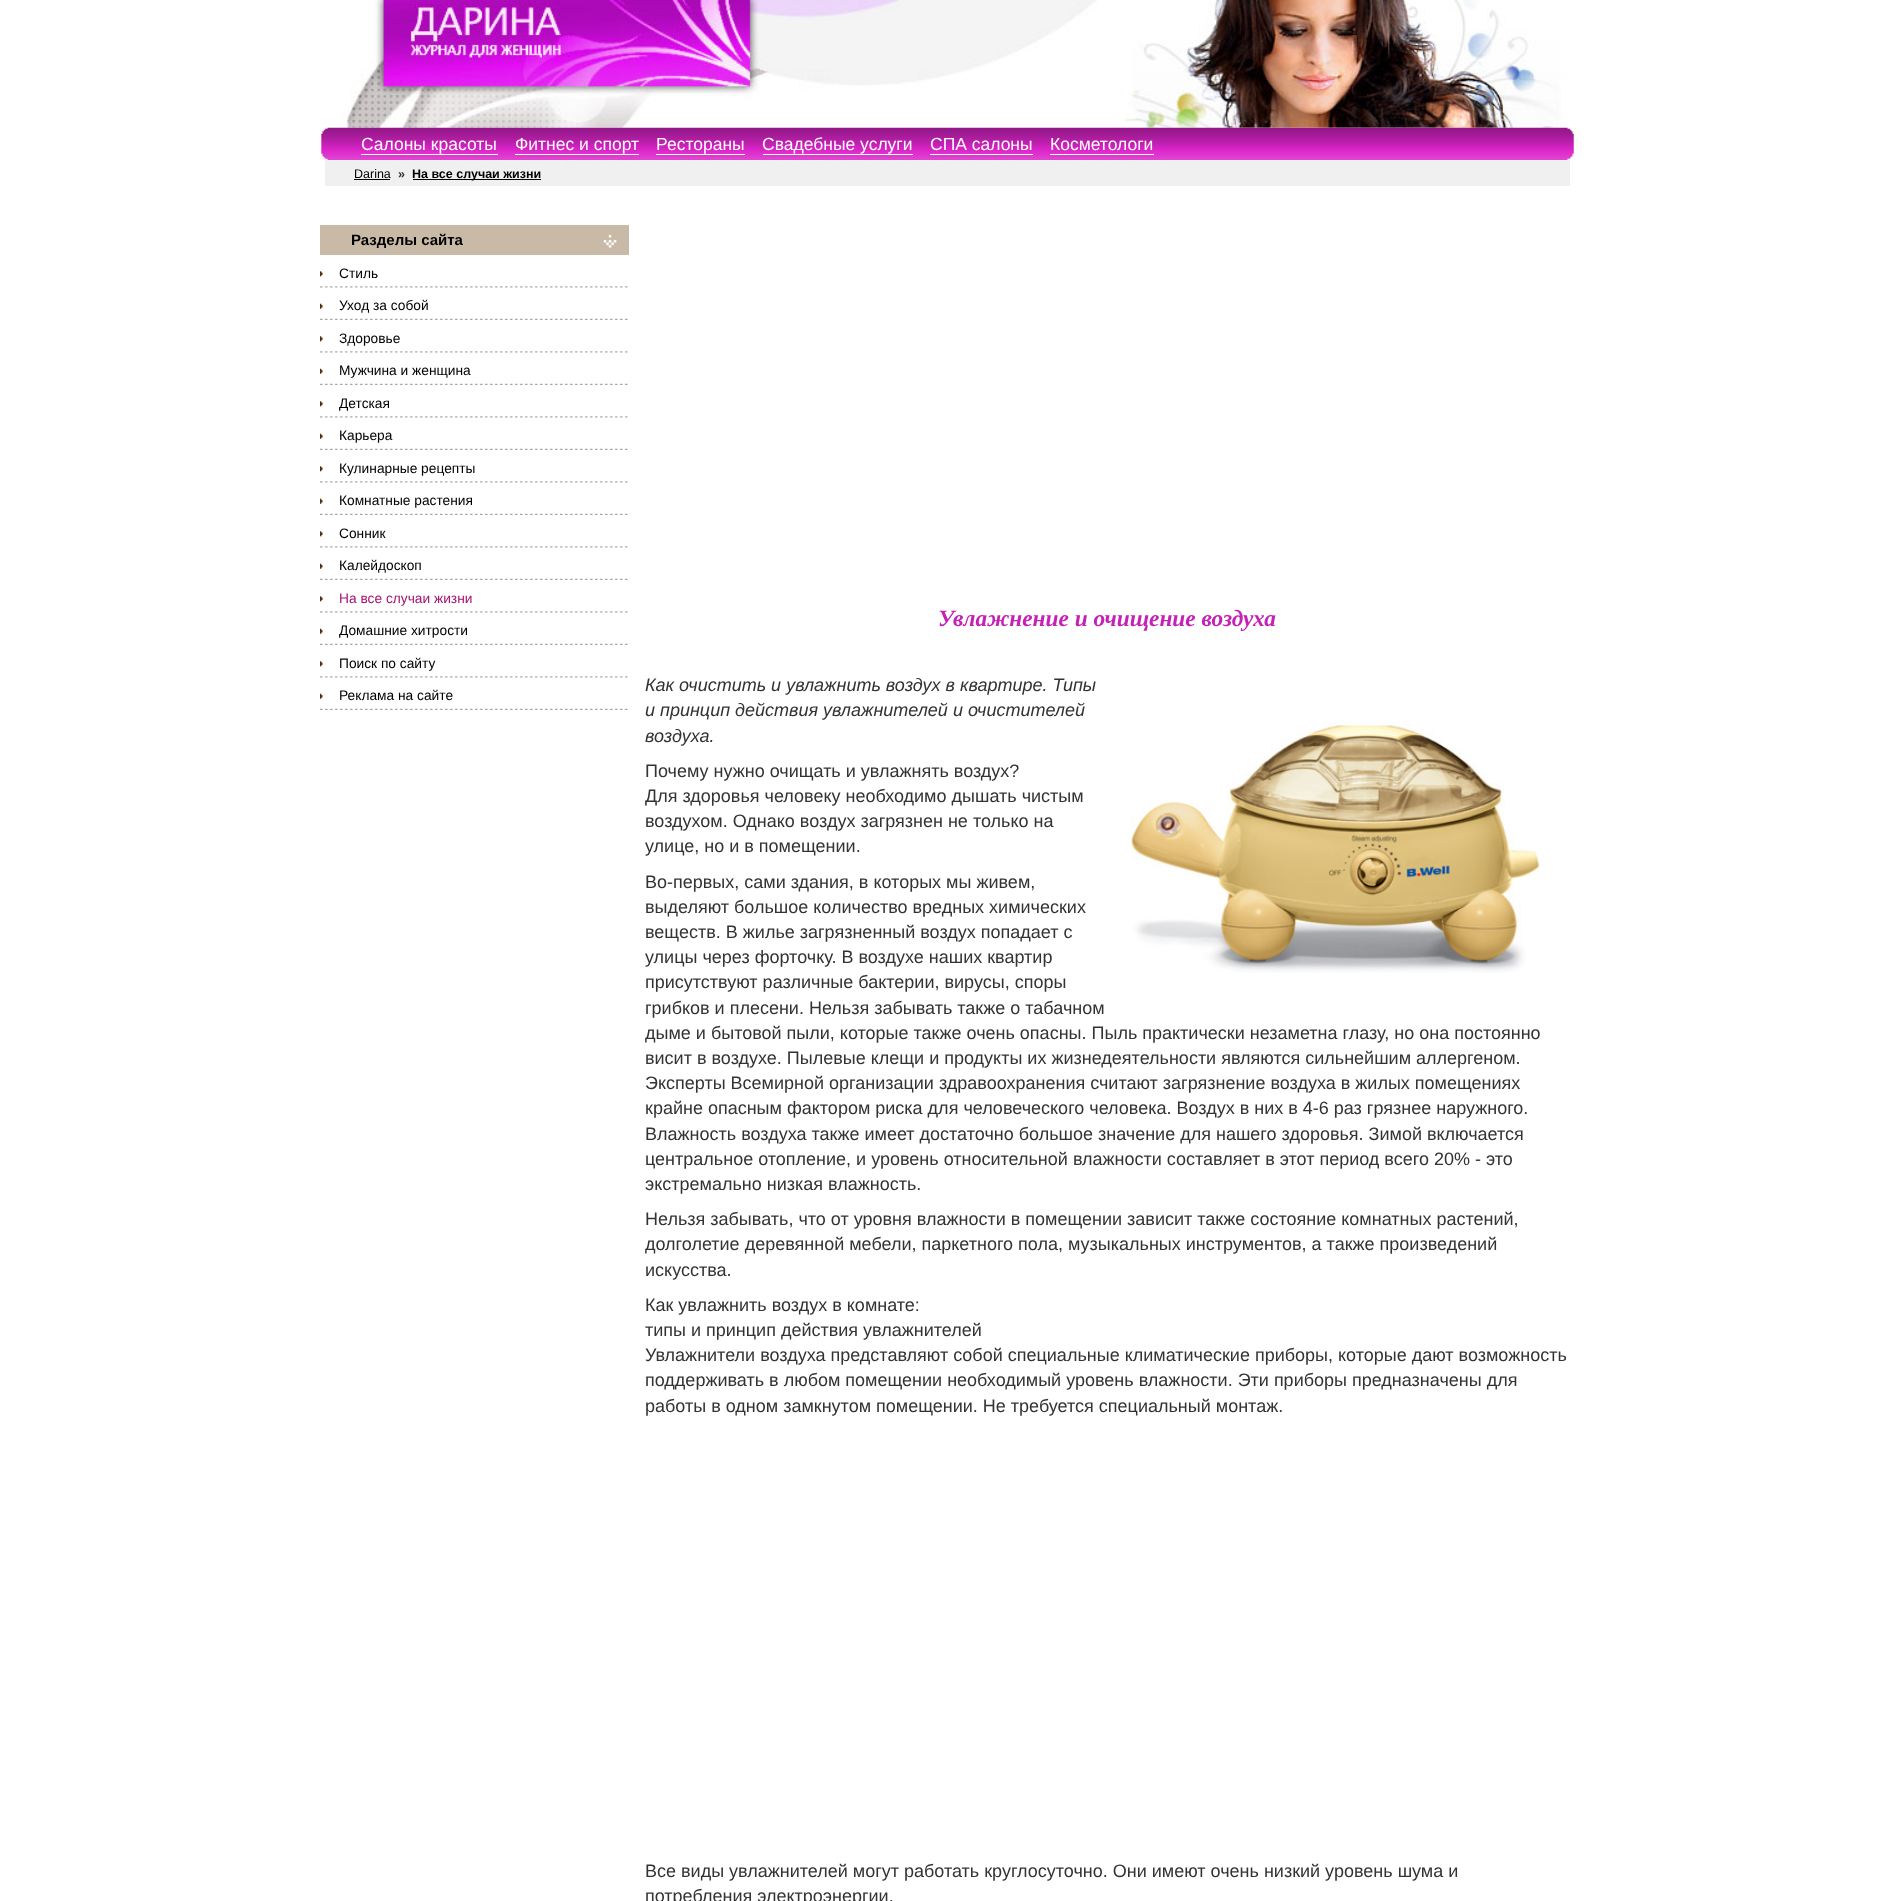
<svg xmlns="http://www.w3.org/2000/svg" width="1889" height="1901">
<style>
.a{font:17.5px Liberation Sans;fill:#fff}
.b{font:12.5px Liberation Sans;fill:#000}
.c{font:bold 12.5px Liberation Sans;fill:#333}
.d{font:bold 12.5px Liberation Sans;fill:#000}
.e{font:bold 15px Liberation Sans;fill:#000}
.f{font:13.75px Liberation Sans;fill:#000}
.g{font:13.75px Liberation Sans;fill:#a41472}
.h{font:italic bold 23.3px Liberation Serif;fill:#c621b6}
.i{font:italic 18px Liberation Sans;fill:#333}
.j{font:18px Liberation Sans;fill:#333}
</style>
<rect width="100%" height="100%" fill="#fff"/>
<image href="2.png" x="321" y="127" width="9" height="33"/>
<image href="3.png" x="330" y="127" width="1235" height="33"/>
<image href="4.png" x="1565" y="127" width="9" height="33"/>
<image href="1.png" x="327" y="0" width="1241" height="128"/>
<path fill="#fff" d="M361 154h137v1H361z"/>
<path fill="#fff" d="M515 154h124v1H515z"/>
<path fill="#fff" d="M656 154h89v1H656z"/>
<path fill="#fff" d="M763 154h150v1H763z"/>
<path fill="#fff" d="M930 154h103v1H930z"/>
<path fill="#fff" d="M1050 154h104v1H1050z"/>
<path fill="#f0f0f0" d="M325 160h1245v26H325z"/>
<path fill="#000" d="M354 179h36v1H354z"/>
<path fill="#000" d="M413 179h128v1H413z"/>
<path fill="#c8baa7" d="M320 225h309v30H320z"/>
<image href="5.png" x="603" y="234" width="14" height="14"/>
<image href="6.png" x="320" y="286" width="308" height="2"/>
<image href="7.png" x="320" y="271" width="3" height="6"/>
<image href="8.png" x="320" y="318" width="308" height="2"/>
<image href="9.png" x="320" y="303" width="3" height="6"/>
<image href="6.png" x="320" y="351" width="308" height="2"/>
<image href="7.png" x="320" y="336" width="3" height="6"/>
<image href="8.png" x="320" y="383" width="308" height="2"/>
<image href="10.png" x="320" y="368" width="3" height="6"/>
<image href="6.png" x="320" y="416" width="308" height="2"/>
<image href="11.png" x="320" y="401" width="3" height="6"/>
<image href="8.png" x="320" y="448" width="308" height="2"/>
<image href="9.png" x="320" y="433" width="3" height="6"/>
<image href="6.png" x="320" y="481" width="308" height="2"/>
<image href="7.png" x="320" y="466" width="3" height="6"/>
<image href="8.png" x="320" y="513" width="308" height="2"/>
<image href="10.png" x="320" y="498" width="3" height="6"/>
<image href="6.png" x="320" y="546" width="308" height="2"/>
<image href="7.png" x="320" y="531" width="3" height="6"/>
<image href="8.png" x="320" y="578" width="308" height="2"/>
<image href="10.png" x="320" y="563" width="3" height="6"/>
<image href="6.png" x="320" y="611" width="308" height="2"/>
<image href="11.png" x="320" y="596" width="3" height="6"/>
<image href="8.png" x="320" y="643" width="308" height="2"/>
<image href="10.png" x="320" y="628" width="3" height="6"/>
<image href="6.png" x="320" y="676" width="308" height="2"/>
<image href="7.png" x="320" y="661" width="3" height="6"/>
<image href="8.png" x="320" y="708" width="308" height="2"/>
<image href="10.png" x="320" y="693" width="3" height="6"/>
<image href="12.png" x="1131" y="721" width="409" height="252"/>
<text class="a" x="361" y="150">Салоны красоты</text>
<text class="a" x="515" y="150">Фитнес и спорт</text>
<text class="a" x="656" y="150">Рестораны</text>
<text class="a" x="762" y="150">Свадебные услуги</text>
<text class="a" x="930" y="150">СПА салоны</text>
<text class="a" x="1050" y="150">Косметологи</text>
<text class="b" x="354" y="178">Darina</text>
<text class="c" x="398" y="178">»</text>
<text class="d" x="412" y="178">На все случаи жизни</text>
<text class="e" x="351" y="245">Разделы сайта</text>
<text class="f" x="339" y="278">Стиль</text>
<text class="f" x="339" y="310">Уход за собой</text>
<text class="f" x="339" y="343">Здоровье</text>
<text class="f" x="339" y="375">Мужчина и женщина</text>
<text class="f" x="339" y="408">Детская</text>
<text class="f" x="339" y="440">Карьера</text>
<text class="f" x="339" y="473">Кулинарные рецепты</text>
<text class="f" x="339" y="505">Комнатные растения</text>
<text class="f" x="339" y="538">Сонник</text>
<text class="f" x="339" y="570">Калейдоскоп</text>
<text class="g" x="339" y="603">На все случаи жизни</text>
<text class="f" x="339" y="635">Домашние хитрости</text>
<text class="f" x="339" y="668">Поиск по сайту</text>
<text class="f" x="339" y="700">Реклама на сайте</text>
<text class="h" x="938" y="626">Увлажнение и очищение воздуха</text>
<text class="i" x="645" y="691">Как очистить и увлажнить воздух в квартире. Типы</text>
<text class="i" x="645" y="716">и принцип действия увлажнителей и очистителей</text>
<text class="i" x="645" y="742">воздуха.</text>
<text class="j" x="645" y="777">Почему нужно очищать и увлажнять воздух?</text>
<text class="j" x="645" y="802">Для здоровья человеку необходимо дышать чистым</text>
<text class="j" x="645" y="827">воздухом. Однако воздух загрязнен не только на</text>
<text class="j" x="645" y="852">улице, но и в помещении.</text>
<text class="j" x="645" y="888">Во-первых, сами здания, в которых мы живем,</text>
<text class="j" x="645" y="913">выделяют большое количество вредных химических</text>
<text class="j" x="645" y="938">веществ. В жилье загрязненный воздух попадает с</text>
<text class="j" x="645" y="963">улицы через форточку. В воздухе наших квартир</text>
<text class="j" x="645" y="988">присутствуют различные бактерии, вирусы, споры</text>
<text class="j" x="645" y="1014">грибков и плесени. Нельзя забывать также о табачном</text>
<text class="j" x="645" y="1039">дыме и бытовой пыли, которые также очень опасны. Пыль практически незаметна глазу, но она постоянно</text>
<text class="j" x="645" y="1064">висит в воздухе. Пылевые клещи и продукты их жизнедеятельности являются сильнейшим аллергеном.</text>
<text class="j" x="645" y="1089">Эксперты Всемирной организации здравоохранения считают загрязнение воздуха в жилых помещениях</text>
<text class="j" x="645" y="1114">крайне опасным фактором риска для человеческого человека. Воздух в них в 4-6 раз грязнее наружного.</text>
<text class="j" x="645" y="1140">Влажность воздуха также имеет достаточно большое значение для нашего здоровья. Зимой включается</text>
<text class="j" x="645" y="1165">центральное отопление, и уровень относительной влажности составляет в этот период всего 20% - это</text>
<text class="j" x="645" y="1190">экстремально низкая влажность.</text>
<text class="j" x="645" y="1225">Нельзя забывать, что от уровня влажности в помещении зависит также состояние комнатных растений,</text>
<text class="j" x="645" y="1250">долголетие деревянной мебели, паркетного пола, музыкальных инструментов, а также произведений</text>
<text class="j" x="645" y="1276">искусства.</text>
<text class="j" x="645" y="1311">Как увлажнить воздух в комнате:</text>
<text class="j" x="645" y="1336">типы и принцип действия увлажнителей</text>
<text class="j" x="645" y="1361">Увлажнители воздуха представляют собой специальные климатические приборы, которые дают возможность</text>
<text class="j" x="645" y="1386">поддерживать в любом помещении необходимый уровень влажности. Эти приборы предназначены для</text>
<text class="j" x="645" y="1412">работы в одном замкнутом помещении. Не требуется специальный монтаж.</text>
<text class="j" x="645" y="1877">Все виды увлажнителей могут работать круглосуточно. Они имеют очень низкий уровень шума и</text>
<text class="j" x="645" y="1902">потребления электроэнергии.</text>
</svg>
